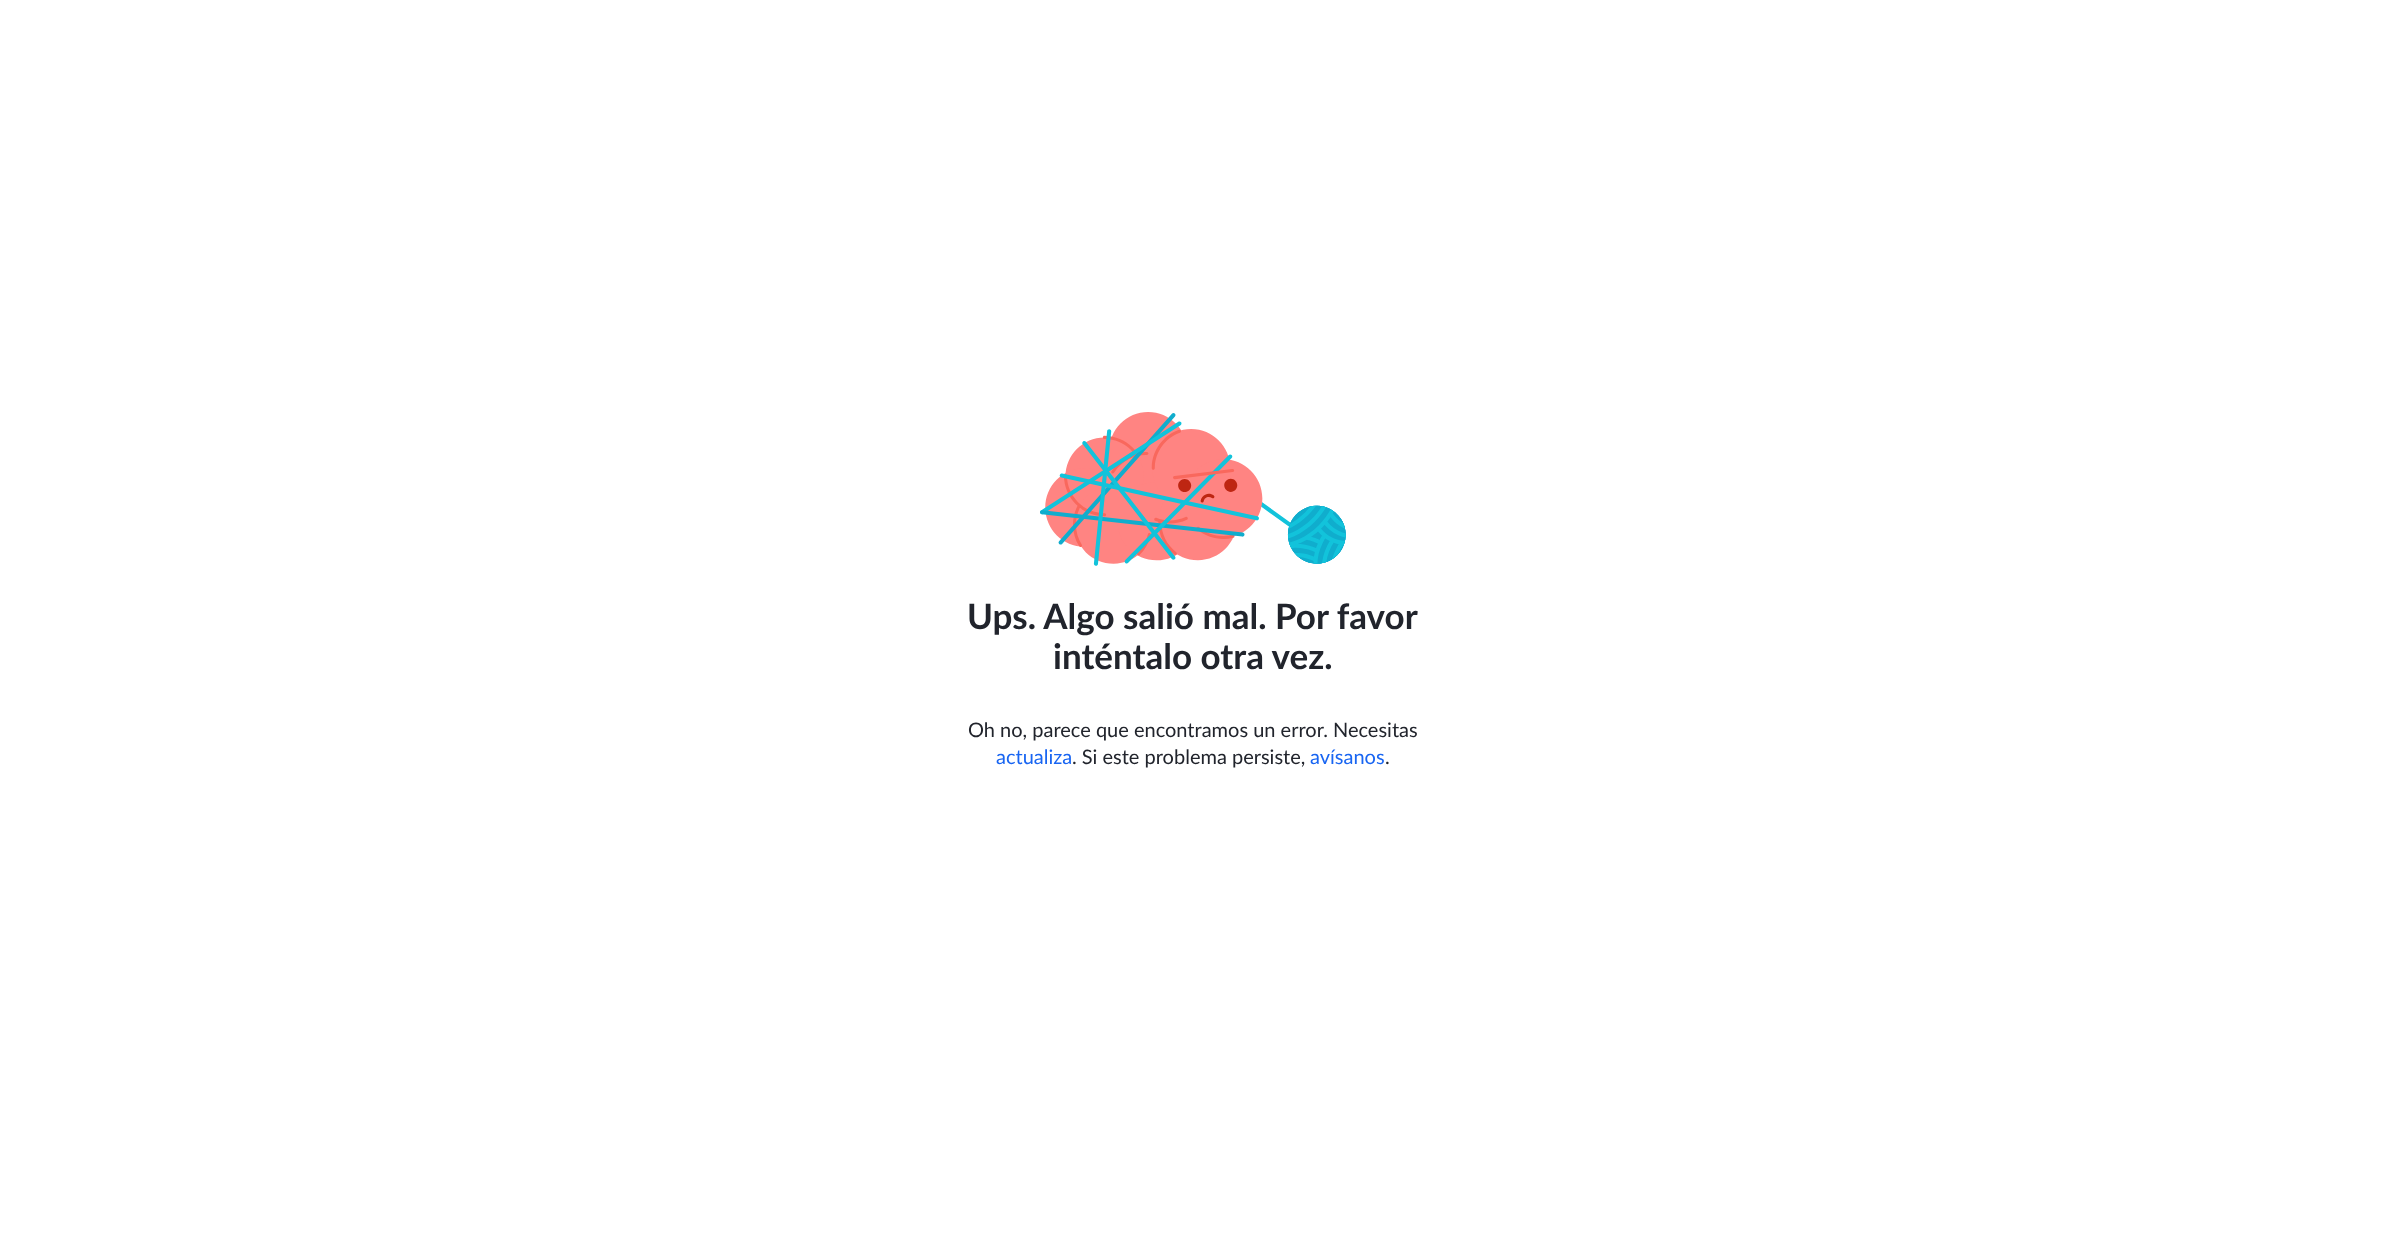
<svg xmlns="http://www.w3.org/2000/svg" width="2384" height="1256">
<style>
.a{font:bold 35px Lato;fill:#21242c}
.b{font:20px Lato;fill:#21242c}
.c{font:20px Lato;fill:#1865f2}
</style>
<rect width="100%" height="100%" fill="#fff"/>
<image href="1.png" x="1040" y="412" width="306" height="154"/>
<text class="a" x="967" y="629">Ups. Algo salió mal. Por favor</text>
<text class="a" x="1053" y="669">inténtalo otra vez.</text>
<text class="b" x="968" y="737">Oh no, parece que encontramos un error. Necesitas</text>
<text class="c" x="996" y="764">actualiza</text>
<text class="b" x="1072" y="764">. Si este problema persiste,</text>
<text class="c" x="1310" y="764">avísanos</text>
<text class="b" x="1385" y="764">.</text>
</svg>
